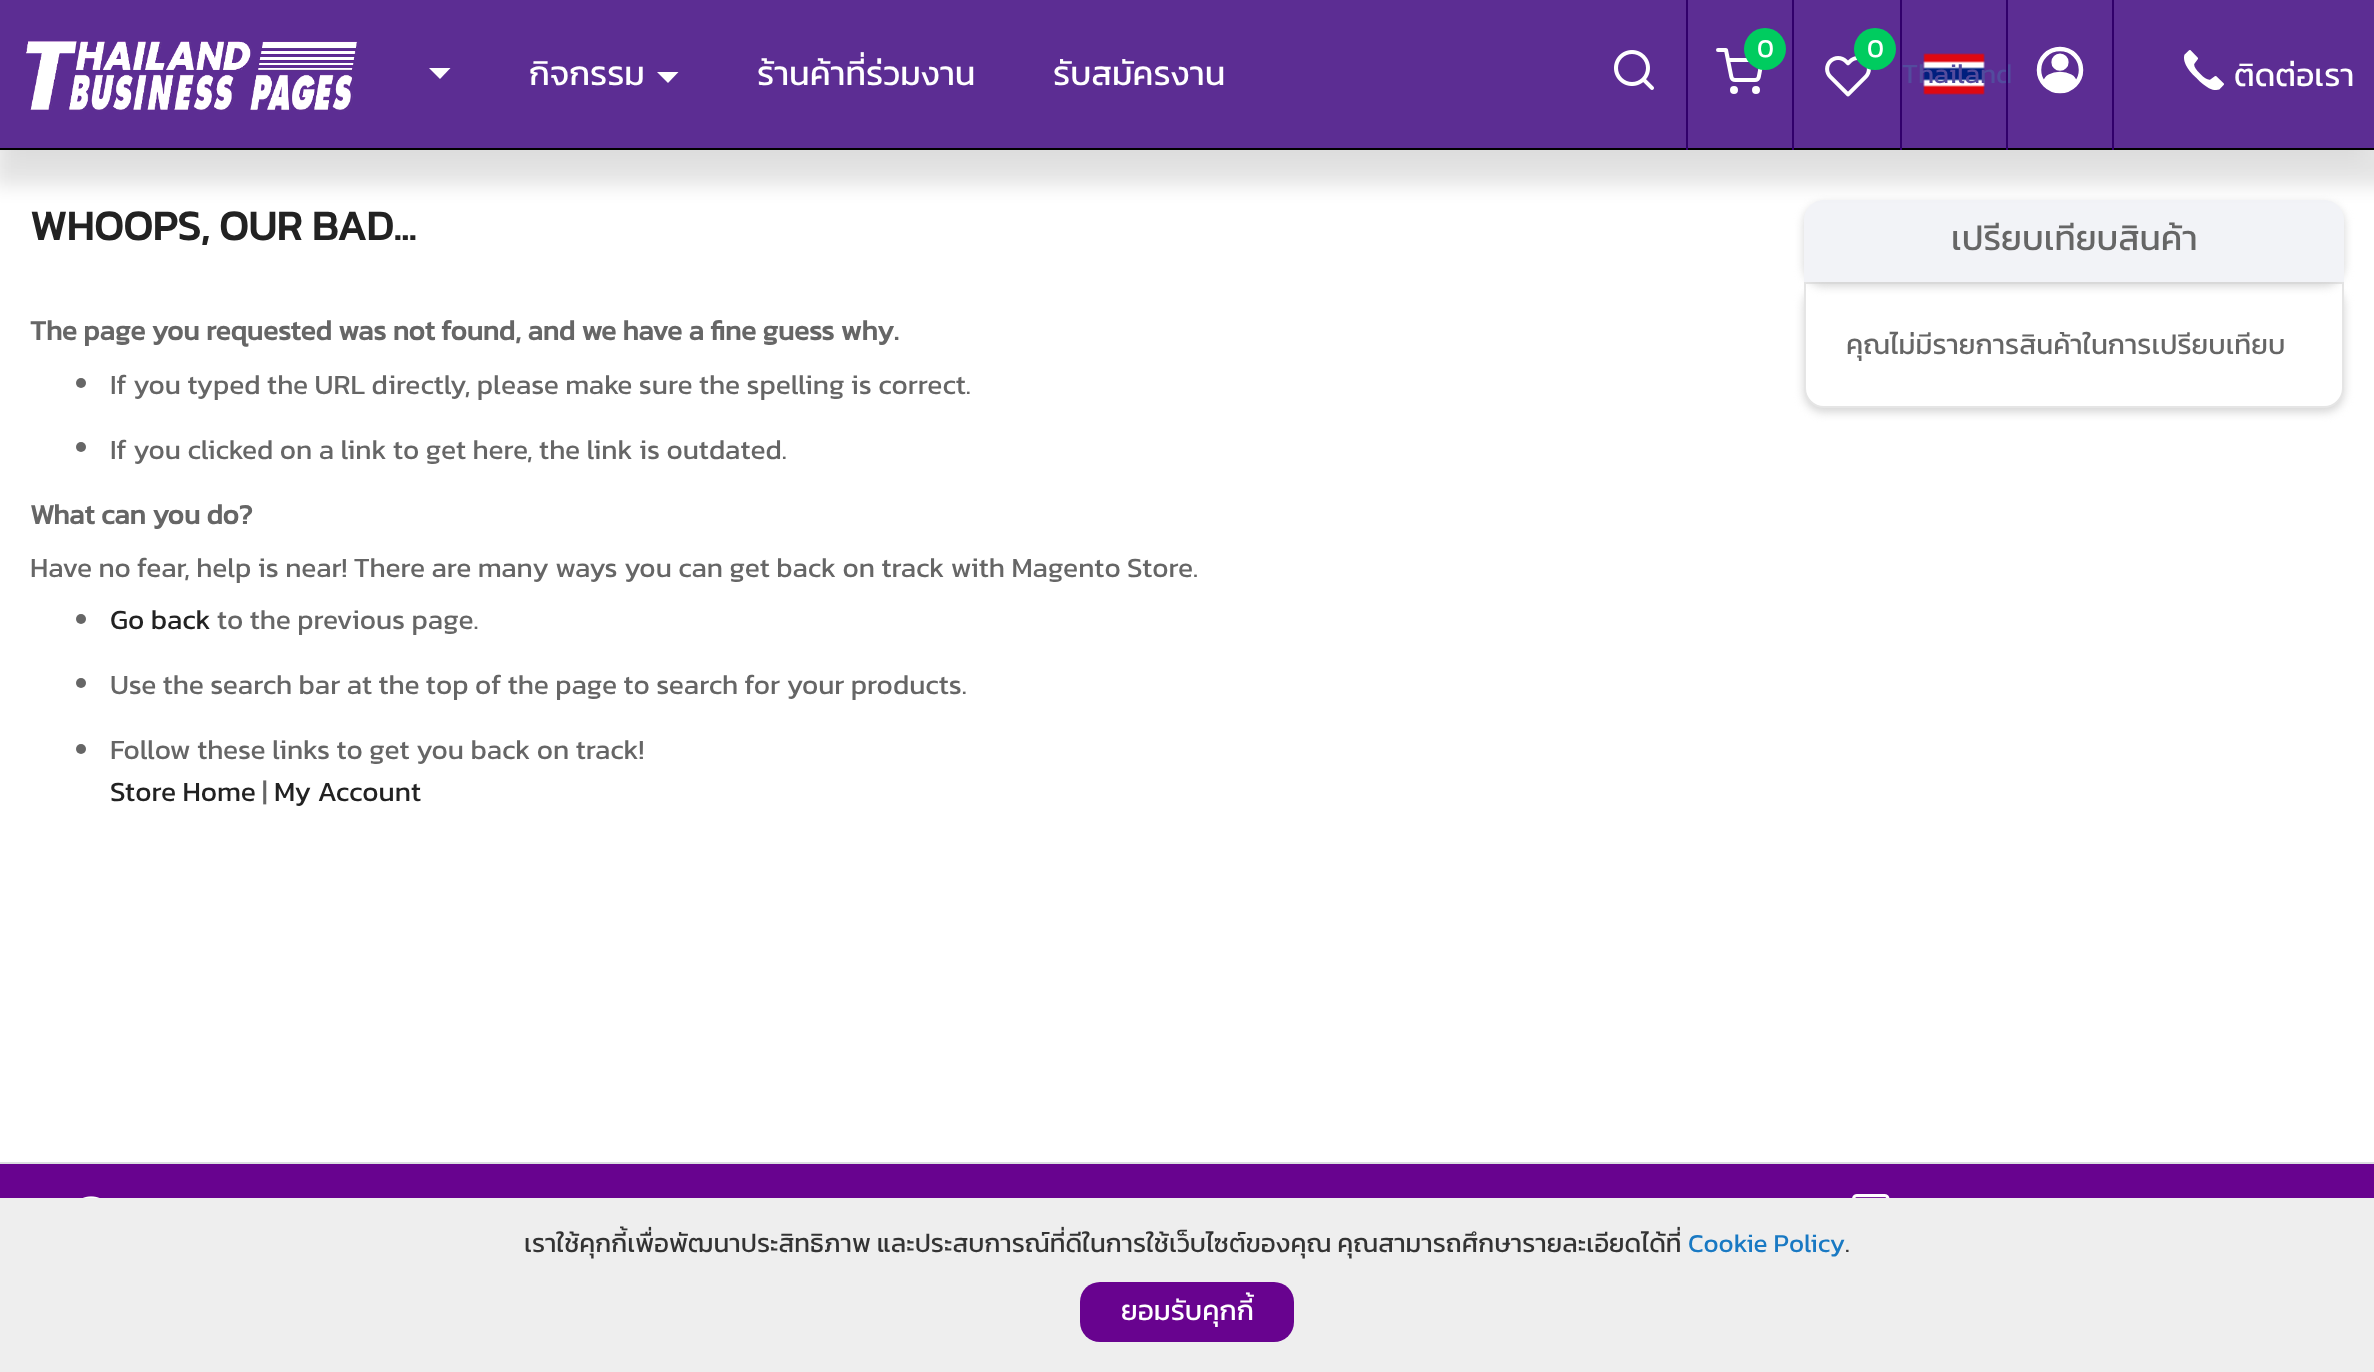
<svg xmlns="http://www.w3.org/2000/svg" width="2374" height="1372">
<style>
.a{font:34px Kanit;fill:#fff}
.b{font:26px Kanit;fill:#fff}
.c{font:28px Kanit;fill:#534b9d}
.d{font:32px Kanit;fill:#fff}
.e{font:bold 42px Kanit;fill:#222}
.f{font:bold 28px Kanit;fill:#666}
.g{font:28px Kanit;fill:#666}
.h{font:28px Kanit;fill:#222}
.i{font:35px Kanit;fill:#666}
.j{font:26px Kanit;fill:#333}
.k{font:26px Kanit;fill:#1979c3}
.l{font:28px Kanit;fill:#fff}
</style>
<rect width="100%" height="100%" fill="#fff"/>
<path fill="#0000000a" filter="blur(10px)" d="M10 30h2354v130H10z"/>
<rect fill="#d4d4d4" filter="blur(5px)" x="1804" y="286" width="540" height="126" rx="20"/>
<path fill="#fff" stroke="#e5e5e5" stroke-width="2" d="M1805 283h538v105c0 10.5-8.5 19-19 19h-500c-10.5 0-19-8.5-19-19z"/>
<rect fill="#d4d4d4" filter="blur(5px)" x="1804" y="204" width="540" height="82" rx="20"/>
<path fill="#f2f3f7" d="M1824 200h500c11 0 20 9 20 20v62h-540v-62c0-11 9-20 20-20z"/>
<path fill="#0000001a" filter="blur(9px)" d="M-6 -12h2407v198H-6z"/>
<path fill="#5c2d93" d="M0 0h2374v148H0z"/>
<path fill="#000" d="M0 148h2374v2H0z"/>
<image href="1.png" x="26" y="41" width="333" height="70"/>
<path fill="#fff" d="M434.5 73.5l5.5 5.5l10.5-11h-21.5z"/>
<path fill="#fff" d="M662.5 77.5l5.5 5.5l10.5-11h-21.5z"/>
<image href="2.png" x="1614" y="50" width="40" height="40"/>
<path fill="#31006a" d="M1792 0h2v150H1792z"/>
<path fill="#31006a" d="M1686 0h2v150H1686z"/>
<image href="3.png" x="1716" y="48" width="47" height="46"/>
<circle fill="#00cc5f" cx="1765" cy="49" r="21"/>
<path fill="#31006a" d="M1900 0h2v150H1900z"/>
<image href="4.png" x="1825" y="56" width="46" height="41"/>
<circle fill="#00cc5f" cx="1875" cy="49" r="21"/>
<image href="5.png" x="1923" y="53" width="62" height="42"/>
<path fill="#31006a" d="M2112 0h2v150H2112z"/>
<image href="6.png" x="2036" y="46" width="48" height="48"/>
<image href="7.png" x="2184" y="50" width="40" height="40"/>
<circle fill="#666" cx="81" cy="383" r="5"/>
<circle fill="#666" cx="81" cy="447" r="5"/>
<circle fill="#666" cx="81" cy="619" r="5"/>
<circle fill="#666" cx="81" cy="683" r="5"/>
<circle fill="#666" cx="81" cy="749" r="5"/>
<path fill="#dcdde1" d="M0 1162h2374v2H0z"/>
<path fill="#68038f" d="M0 1164h2374v34H0z"/>
<image href="8.png" x="83" y="1196" width="17" height="2"/>
<image href="9.png" x="1852" y="1194" width="38" height="4"/>
<path fill="#eee" d="M0 1198h2374v174H0z"/>
<rect fill="#68038f" x="1080" y="1282" width="214" height="60" rx="20"/>
<text class="a" x="529" y="85">กิจกรรม</text>
<text class="a" x="757" y="85">ร้านค้าที่ร่วมงาน</text>
<text class="a" x="1053" y="85">รับสมัครงาน</text>
<text class="b" x="1757" y="57">0</text>
<text class="b" x="1867" y="57">0</text>
<text class="c" x="1902" y="83">Thailand</text>
<path fill="#31006a" d="M2006 0h2v150H2006z"/>
<text class="d" x="2234" y="86">ติดต่อเรา</text>
<text class="e" x="30" y="240">WHOOPS, OUR BAD...</text>
<text class="f" x="30" y="340">The page you requested was not found, and we have a fine guess why.</text>
<text class="g" x="110" y="394">If you typed the URL directly, please make sure the spelling is correct.</text>
<text class="g" x="110" y="459">If you clicked on a link to get here, the link is outdated.</text>
<text class="f" x="30" y="524">What can you do?</text>
<text class="g" x="30" y="577">Have no fear, help is near! There are many ways you can get back on track with Magento Store.</text>
<text class="h" x="110" y="629">Go back</text>
<text class="g" x="217" y="629">to the previous page.</text>
<text class="g" x="110" y="694">Use the search bar at the top of the page to search for your products.</text>
<text class="g" x="110" y="759">Follow these links to get you back on track!</text>
<text class="h" x="110" y="801">Store Home</text>
<text class="g" x="262" y="801">|</text>
<text class="h" x="274" y="801">My Account</text>
<text class="i" x="1951" y="250">เปรียบเทียบสินค้า</text>
<text class="g" x="1846" y="354">คุณไม่มีรายการสินค้าในการเปรียบเทียบ</text>
<text class="j" x="524" y="1252">เราใช้คุกกี้เพื่อพัฒนาประสิทธิภาพ และประสบการณ์ที่ดีในการใช้เว็บไซต์ของคุณ คุณสามารถศึกษารายละเอียดได้ที่</text>
<text class="k" x="1688" y="1252">Cookie Policy</text>
<text class="j" x="1845" y="1252">.</text>
<text class="l" x="1121" y="1320">ยอมรับคุกกี้</text>
</svg>
